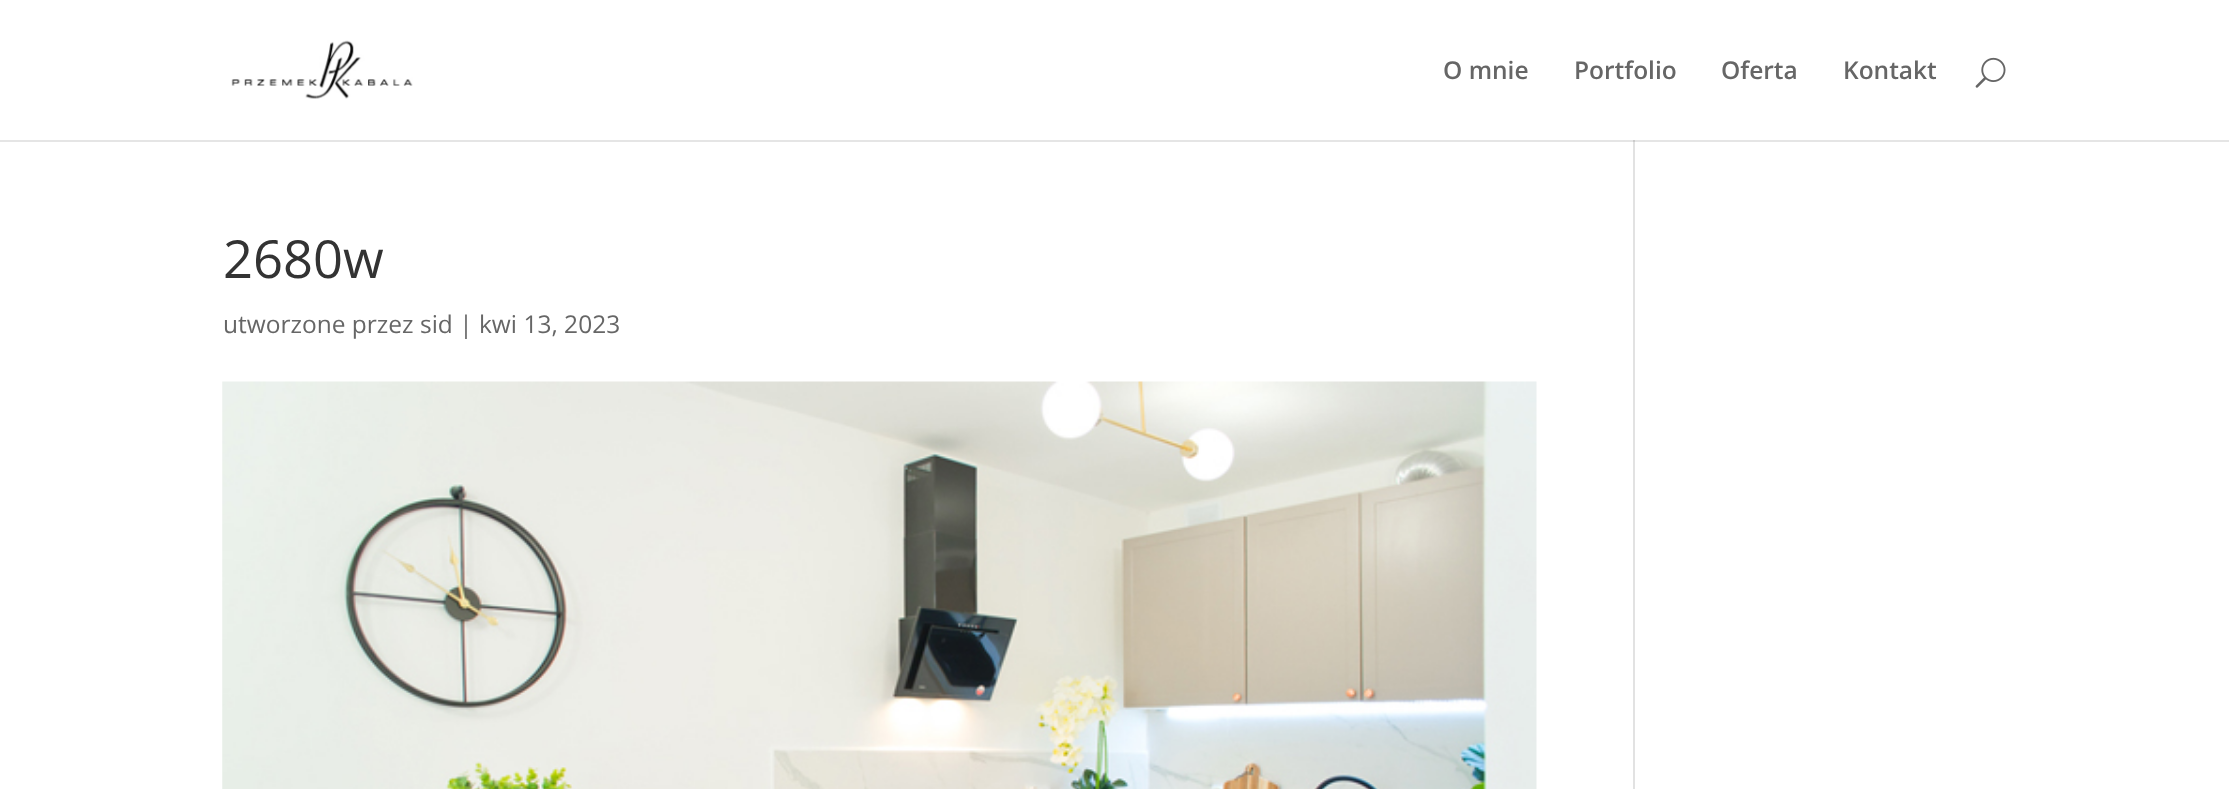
<svg xmlns="http://www.w3.org/2000/svg" width="2229" height="789">
<style>
.a{font:600 24.5px Open Sans;fill:#666}
.b{font:52.5px Open Sans;fill:#333}
.c{font:24.5px Open Sans;fill:#666}
</style>
<rect width="100%" height="100%" fill="#fff"/>
<path fill="#e2e2e2" d="M1633 140h2v649H1633z"/>
<path fill="#0000001a" d="M0 140v2h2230v-140v138z"/>
<image href="1.png" x="231" y="40" width="182" height="59"/>
<image href="2.png" x="1975" y="57" width="31" height="31"/>
<image href="3.png" x="222" y="381" width="1315" height="408"/>
<text class="a" x="1443" y="79">O mnie</text>
<text class="a" x="1574" y="79">Portfolio</text>
<text class="a" x="1721" y="79">Oferta</text>
<text class="a" x="1843" y="79">Kontakt</text>
<text class="b" x="223" y="278">2680w</text>
<text class="c" x="223" y="333">utworzone przez sid | kwi 13, 2023</text>
</svg>
